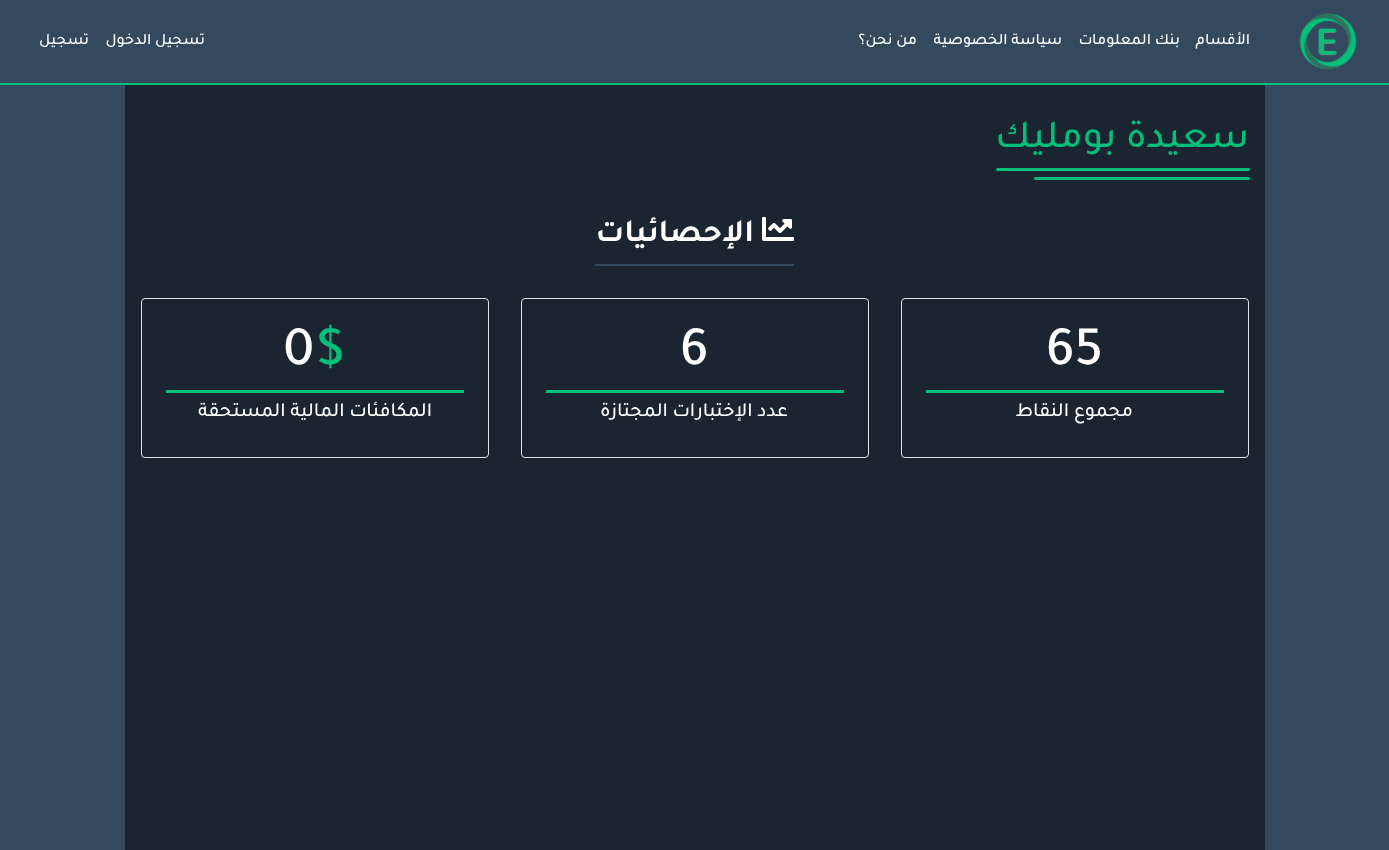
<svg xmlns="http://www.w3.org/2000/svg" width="1389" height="850">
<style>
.a{font:500 16px Tajawal;direction:rtl;fill:#fff}
.b{font:500 40px Tajawal;direction:rtl;fill:#04bf7b}
.c{font:bold 32px Tajawal;direction:rtl;fill:#fff}
.d{font:500 56px Tajawal;fill:#fff}
.e{font:500 20px Tajawal;direction:rtl;fill:#fff}
.f{font:500 56px Tajawal;fill:#04bf7b}
</style>
<rect width="100%" height="100%" fill="#34495e"/>
<path fill="#04bf7b" d="M0 83h1389v2H0z"/>
<image href="1.png" x="1299" y="13" width="58" height="57"/>
<path fill="#1a2531" d="M125 85h1140v765H125z"/>
<rect fill="#04bf7b" x="996" y="168" width="254" height="3" rx="1.5"/>
<rect fill="#04bf7b" x="1034" y="177" width="216" height="3" rx="1.5"/>
<path fill="#34495e" d="M595 264h199v2H595z"/>
<image href="2.png" x="762" y="217" width="32" height="24"/>
<rect fill="none" stroke="#dee2e6" x="901.5" y="298.5" width="347" height="159" rx="3.5"/>
<path fill="#04bf7b" d="M926 390h298v3H926z"/>
<rect fill="none" stroke="#dee2e6" x="521.5" y="298.5" width="347" height="159" rx="3.5"/>
<path fill="#04bf7b" d="M546 390h298v3H546z"/>
<rect fill="none" stroke="#dee2e6" x="141.5" y="298.5" width="347" height="159" rx="3.5"/>
<path fill="#04bf7b" d="M166 390h298v3H166z"/>
<path fill="#17212c" d="M140 490h1110v1H140z"/>
<text class="a" x="1250" y="44">الأقسام</text>
<text class="a" x="1180" y="44">بنك المعلومات</text>
<text class="a" x="1062" y="44">سياسة الخصوصية</text>
<text class="a" x="917" y="44">من نحن؟</text>
<text class="a" x="205" y="44">تسجيل الدخول</text>
<text class="a" x="89" y="44">تسجيل</text>
<text class="b" x="1249" y="147">سعيدة بومليك</text>
<text class="c" x="754" y="241">الإحصائيات</text>
<text class="d" x="1046" y="364">65</text>
<text class="e" x="1133" y="416">مجموع النقاط</text>
<text class="d" x="680" y="364">6</text>
<text class="e" x="788" y="416">عدد الإختبارات المجتازة</text>
<text class="f" x="315" y="364">$</text>
<text class="d" x="283" y="364">0</text>
<text class="e" x="432" y="416">المكافئات المالية المستحقة</text>
</svg>
